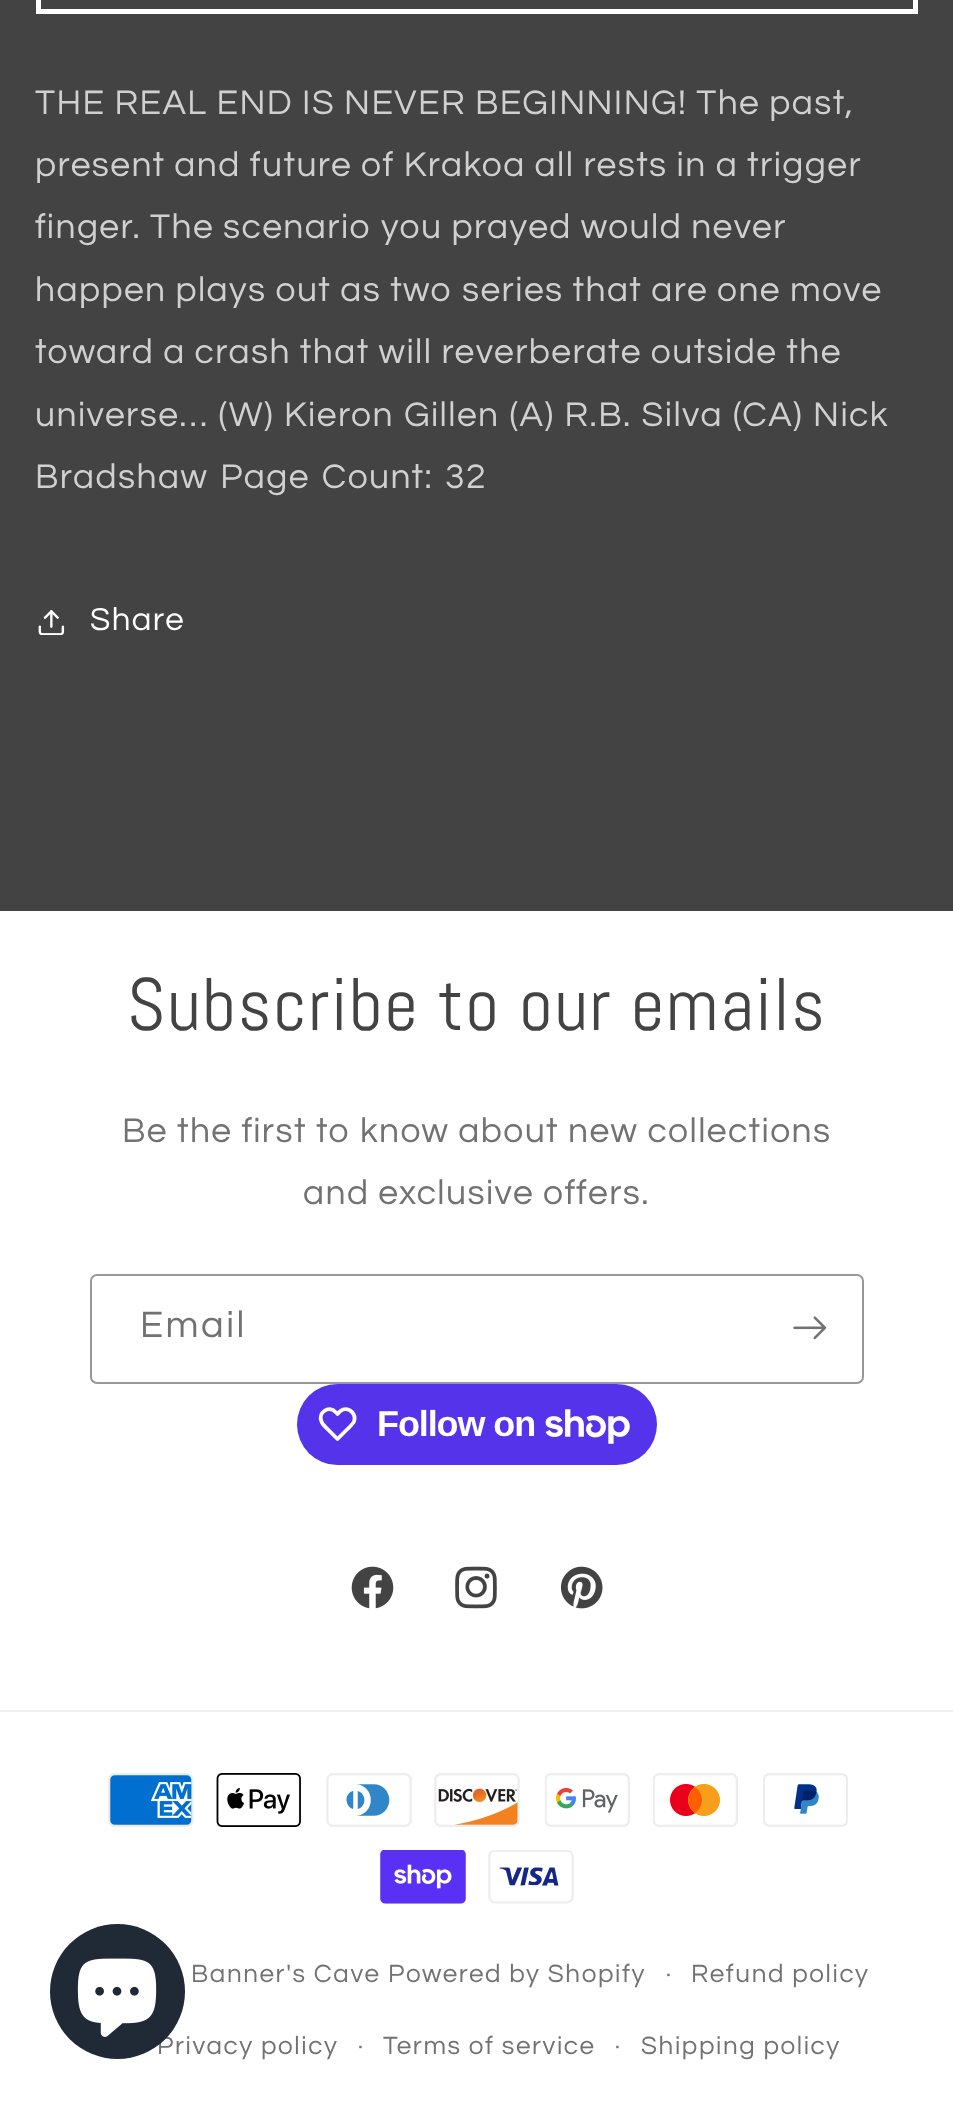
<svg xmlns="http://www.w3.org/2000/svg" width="953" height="2104">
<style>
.a{font:35.4px Questrial;letter-spacing:1.42px;fill:#d0d0d0}
.b{font:33px Questrial;letter-spacing:1.42px;fill:#fff}
.c{font:74.25px Abel;letter-spacing:1.5px;fill:#434343}
.d{font:35.4px Questrial;letter-spacing:1.42px;fill:#727272}
.e{font:38px Questrial;letter-spacing:2.5px;fill:#727272}
.f{font:bold 36px Liberation Sans;letter-spacing:-1.1px;fill:#fff}
.g{font:24px Questrial;letter-spacing:1.6px;fill:#727272}
.h{font:26px Questrial;letter-spacing:1.6px;fill:#727272}
</style>
<rect width="100%" height="100%" fill="#434343"/>
<path fill="none" stroke="#fff" stroke-width="5" d="M38.5 -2.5h877v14H38.5z"/>
<image href="1.png" x="38" y="610" width="27" height="25"/>
<path fill="#fff" d="M0 911h953v1193H0z"/>
<rect fill="none" stroke="#989898" stroke-width="2" x="91" y="1275" width="772" height="108" rx="6"/>
<image href="2.png" x="793" y="1316" width="34" height="24"/>
<rect fill="#5433eb" x="297" y="1384" width="360" height="81" rx="40.5"/>
<path fill="none" stroke="#fff" stroke-width="3.8" stroke-linejoin="round" d="M335.5 1412l2 2c1.5-2 3-3.5 5.5-4.5c7-2 13.5 5 11 12c-1.5 3-4.5 5.5-7 8l-9.5 9.5l-9.5-9.5c-2.5-2.5-5.5-4.5-6.5-8c-4-9 7.5-16.5 14-9.5z"/>
<image href="4.png" x="545" y="1409" width="85" height="35"/>
<image href="5.png" x="351" y="1566" width="43" height="43"/>
<image href="6.png" x="455" y="1566" width="42" height="43"/>
<image href="7.png" x="560" y="1566" width="43" height="43"/>
<path fill="#f0f0f0" d="M0 1710h953v2H0z"/>
<image href="8.png" x="108" y="1773" width="86" height="54"/>
<image href="9.png" x="216" y="1773" width="85" height="54"/>
<image href="10.png" x="326" y="1773" width="86" height="54"/>
<image href="11.png" x="434" y="1773" width="86" height="54"/>
<image href="12.png" x="545" y="1773" width="85" height="54"/>
<image href="13.png" x="653" y="1773" width="85" height="54"/>
<image href="14.png" x="763" y="1773" width="85" height="54"/>
<image href="15.png" x="380" y="1850" width="86" height="54"/>
<image href="16.png" x="488" y="1850" width="86" height="54"/>
<text class="a" x="35" y="114">THE REAL END IS NEVER BEGINNING! The past,</text>
<text class="a" x="35" y="176">present and future of Krakoa all rests in a trigger</text>
<text class="a" x="35" y="238">finger. The scenario you prayed would never</text>
<text class="a" x="35" y="301">happen plays out as two series that are one move</text>
<text class="a" x="35" y="363">toward a crash that will reverberate outside the</text>
<text class="a" x="35" y="426" word-spacing="1">universe… (W) Kieron Gillen (A) R.B. Silva (CA) Nick</text>
<text class="a" x="35" y="488" word-spacing="3">Bradshaw Page Count: 32</text>
<text class="b" x="90" y="630">Share</text>
<text class="c" x="127" y="1030">Subscribe to our emails</text>
<text class="d" x="122" y="1142">Be the first to know about new collections</text>
<text class="d" x="303" y="1204">and exclusive offers.</text>
<text class="e" x="140" y="1337">Email</text>
<text class="f" x="377" y="1436">Follow on</text>
<text class="g" x="666" y="1982">·</text>
<text class="h" x="691" y="1982">Refund policy</text>
<text class="h" x="157" y="2054">Privacy policy</text>
<circle fill="#202a36" cx="117.5" cy="1991.5" r="67.5"/>
<image href="3.png" x="77" y="1958" width="80" height="79"/>
<text class="g" x="358" y="2054">·</text>
<text class="h" x="383" y="2054">Terms of service</text>
<text class="g" x="615" y="2054">·</text>
<text class="h" x="641" y="2054">Shipping policy</text>
<text class="h" x="191" y="1982">Banner's Cave</text>
<text class="h" x="388" y="1982">Powered by Shopify</text>
</svg>
